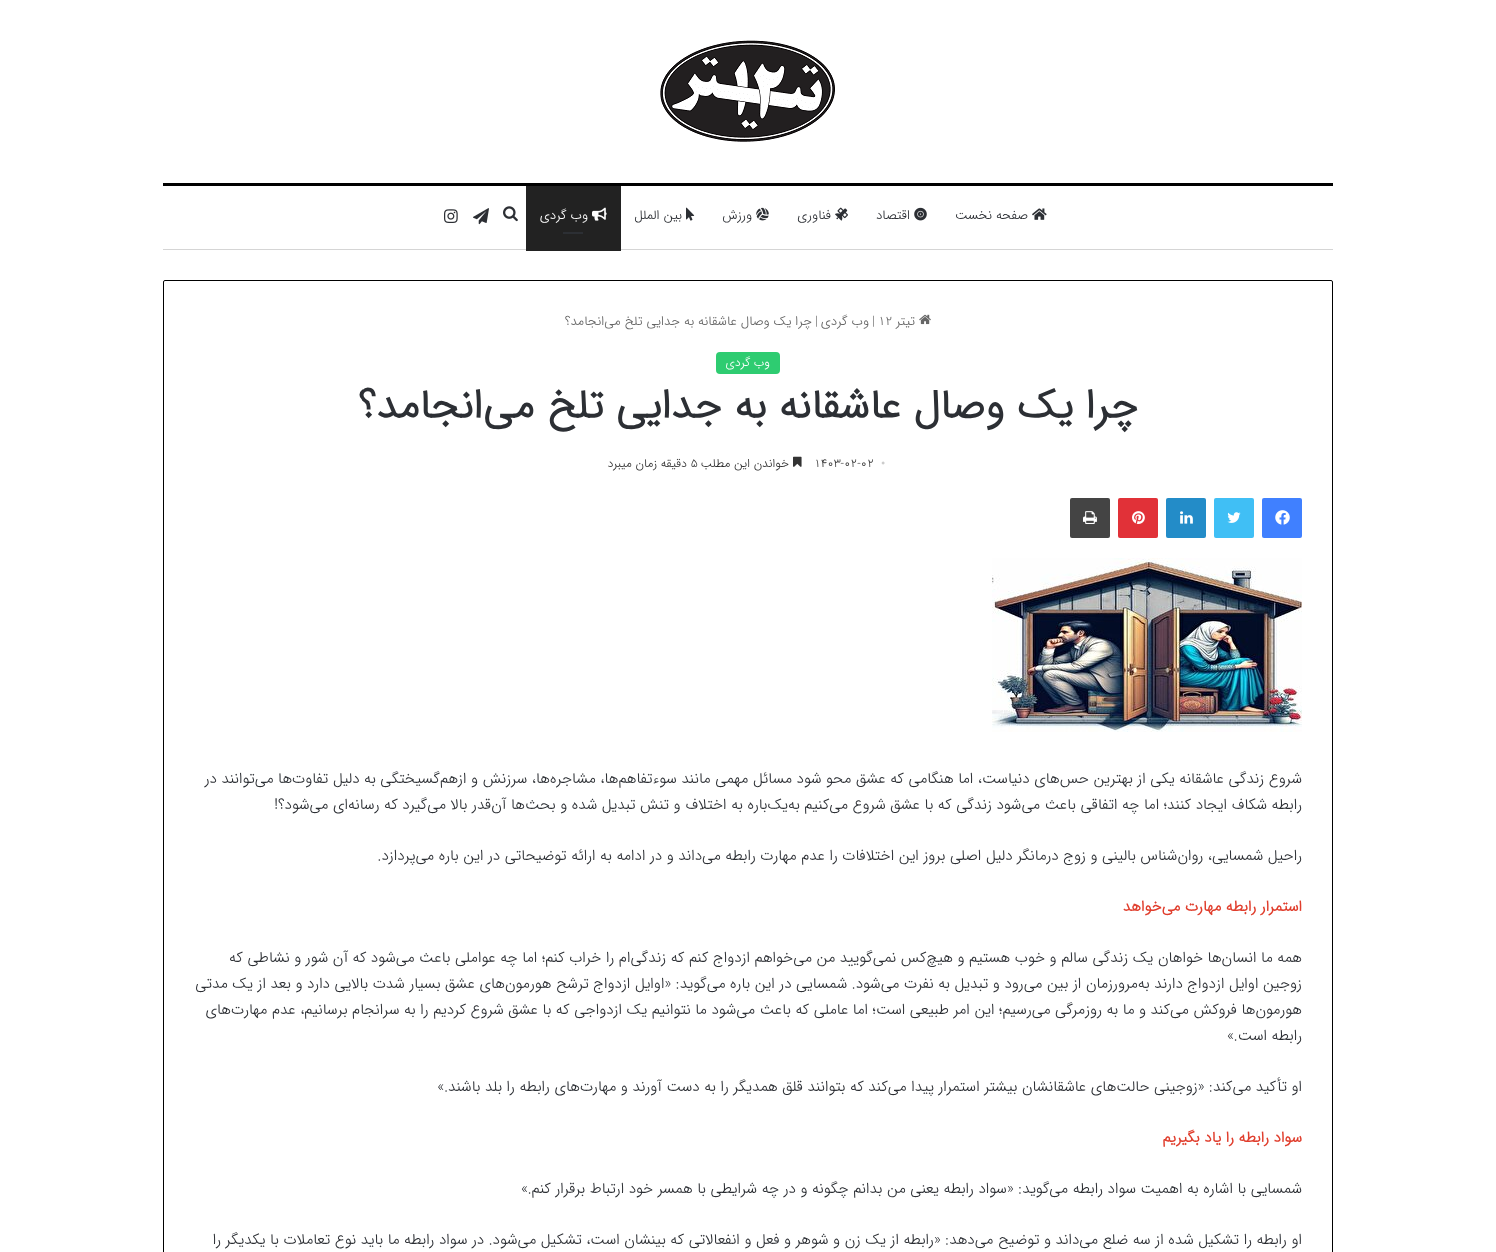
<svg xmlns="http://www.w3.org/2000/svg" width="1496" height="1252">
<style>
.a{font:300 13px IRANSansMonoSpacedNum;direction:rtl;fill:#2c2f34}
.b{font:300 13px IRANSansMonoSpacedNum;direction:rtl;fill:#fff}
.c{font:300 13px IRANSansMonoSpacedNum;direction:rtl;fill:#666}
.d{font:300 13px IRANSansMonoSpacedNum;fill:#666}
.e{font:300 12px IRANSansMonoSpacedNum;direction:rtl;fill:#fff}
.f{font:bold 41px IRANSansMonoSpacedNum;direction:rtl;fill:#2c2f34}
.g{font:12px Liberation Serif;fill:#ccc}
.h{font:300 12px IRANSansMonoSpacedNum;fill:#333}
.i{font:300 12px IRANSansMonoSpacedNum;direction:rtl;fill:#333}
.j{font:300 15px IRANSansMonoSpacedNum;direction:rtl;fill:#2c2f34}
.k{font:bold 15px IRANSansMonoSpacedNum;direction:rtl;fill:#e03e2d}
</style>
<rect width="100%" height="100%" fill="#fff"/>
<image href="1.png" x="660" y="40" width="175" height="102"/>
<path fill="#000" d="M163 183h1170v3H163z"/>
<path fill="#d5d5d5" d="M163 249h1170v1H163z"/>
<image href="2.png" x="1032" y="208" width="15" height="12"/>
<image href="3.png" x="914" y="207" width="13" height="14"/>
<image href="4.png" x="835" y="207" width="13" height="14"/>
<image href="5.png" x="756" y="207" width="13" height="14"/>
<image href="6.png" x="686" y="207" width="9" height="14"/>
<path fill="#222" d="M526 186h95v65H526z"/>
<image href="7.png" x="592" y="207" width="15" height="14"/>
<path fill="#2c2f34" d="M563 232h20v2H563z"/>
<image href="8.png" x="503" y="206" width="15" height="16"/>
<image href="9.png" x="473" y="208" width="16" height="17"/>
<image href="10.png" x="444" y="209" width="14" height="14"/>
<rect fill="none" stroke="#000" x="163.5" y="280.5" width="1169" height="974" rx="1.5"/>
<image href="11.png" x="919" y="314" width="12" height="11"/>
<rect fill="#2ecc71" x="716" y="352" width="64" height="22" rx="4"/>
<image href="12.png" x="793" y="456" width="9" height="11"/>
<rect fill="#4080ff" x="1262" y="498" width="40" height="40" rx="2"/>
<image href="13.png" x="1275" y="510" width="15" height="15"/>
<rect fill="#40bff5" x="1214" y="498" width="40" height="40" rx="2"/>
<image href="14.png" x="1227" y="512" width="14" height="11"/>
<rect fill="#238cc8" x="1166" y="498" width="40" height="40" rx="2"/>
<image href="15.png" x="1180" y="511" width="13" height="13"/>
<rect fill="#e13138" x="1118" y="498" width="40" height="40" rx="2"/>
<image href="16.png" x="1132" y="511" width="13" height="13"/>
<rect fill="#444" x="1070" y="498" width="40" height="40" rx="2"/>
<image href="17.png" x="1083" y="511" width="14" height="13"/>
<image href="18.png" x="992" y="558" width="310" height="174"/>
<text class="a" x="1028" y="219">صفحه نخست</text>
<text class="a" x="910" y="219">اقتصاد</text>
<text class="a" x="831" y="219">فناوری</text>
<text class="a" x="752" y="219">ورزش</text>
<text class="a" x="682" y="219">بین الملل</text>
<text class="b" x="588" y="219">وب گردی</text>
<text class="c" x="915" y="325">تیتر</text>
<text class="d" x="878" y="325">12</text>
<text class="d" x="872" y="325">|</text>
<text class="c" x="869" y="325">وب گردی</text>
<text class="d" x="815" y="325">|</text>
<text class="c" x="812" y="325">چرا یک وصال عاشقانه به جدایی تلخ می‌انجامد؟</text>
<text class="e" x="770" y="366">وب گردی</text>
<text class="f" x="1138" y="418">چرا یک وصال عاشقانه به جدایی تلخ می‌انجامد؟</text>
<text class="g" x="881" y="467">•</text>
<text class="h" x="814" y="467">۱۴۰۳-۰۲-۰۲</text>
<text class="i" x="789" y="467">خواندن این مطلب</text>
<text class="h" x="691" y="467">5</text>
<text class="i" x="687" y="467">دقیقه زمان میبرد</text>
<text class="j" x="1302" y="783">شروع زندگی عاشقانه یکی از بهترین حس‌های دنیاست، اما هنگامی که عشق محو شود مسائل مهمی مانند سوءتفاهم‌ها، مشاجره‌ها، سرزنش و ازهم‌گسیختگی به دلیل تفاوت‌ها می‌توانند در</text>
<text class="j" x="1302" y="809">رابطه شکاف ایجاد کنند؛ اما چه اتفاقی باعث می‌شود زندگی که با عشق شروع می‌کنیم به‌یک‌باره به اختلاف و تنش تبدیل شده و بحث‌ها آن‌قدر بالا می‌گیرد که رسانه‌ای می‌شود؟!</text>
<text class="j" x="1302" y="860">راحیل شمسایی، روان‌شناس بالینی و زوج درمانگر دلیل اصلی بروز این اختلافات را عدم مهارت رابطه می‌داند و در ادامه به ارائه توضیحاتی در این باره می‌پردازد.</text>
<text class="k" x="1302" y="911">استمرار رابطه مهارت می‌خواهد</text>
<text class="j" x="1302" y="962">همه ما انسان‌ها خواهان یک زندگی سالم و خوب هستیم و هیچ‌کس نمی‌گویید من می‌خواهم ازدواج کنم که زندگی‌ام را خراب کنم؛ اما چه عواملی باعث می‌شود که آن شور و نشاطی که</text>
<text class="j" x="1302" y="988">زوجین اوایل ازدواج دارند به‌مرورزمان از بین می‌رود و تبدیل به نفرت می‌شود. شمسایی در این باره می‌گوید: «اوایل ازدواج ترشح هورمون‌های عشق بسیار شدت بالایی دارد و بعد از یک مدتی</text>
<text class="j" x="1302" y="1014">هورمون‌ها فروکش می‌کند و ما به روزمرگی می‌رسیم؛ این امر طبیعی است؛ اما عاملی که باعث می‌شود ما نتوانیم یک ازدواجی که با عشق شروع کردیم را به سرانجام برسانیم، عدم مهارت‌های</text>
<text class="j" x="1302" y="1040">رابطه است.»</text>
<text class="j" x="1302" y="1091">او تأکید می‌کند: «زوجینی حالت‌های عاشقانشان بیشتر استمرار پیدا می‌کند که بتوانند قلق همدیگر را به دست آورند و مهارت‌های رابطه را بلد باشند.»</text>
<text class="k" x="1302" y="1142">سواد رابطه را یاد بگیریم</text>
<text class="j" x="1302" y="1193">شمسایی با اشاره به اهمیت سواد رابطه می‌گوید: «سواد رابطه یعنی من بدانم چگونه و در چه شرایطی با همسر خود ارتباط برقرار کنم.»</text>
<text class="j" x="1302" y="1244">او رابطه را تشکیل شده از سه ضلع می‌داند و توضیح می‌دهد: «رابطه از یک زن و شوهر و فعل و انفعالاتی که بینشان است، تشکیل می‌شود. در سواد رابطه ما باید نوع تعاملات با یکدیگر را</text>
</svg>
